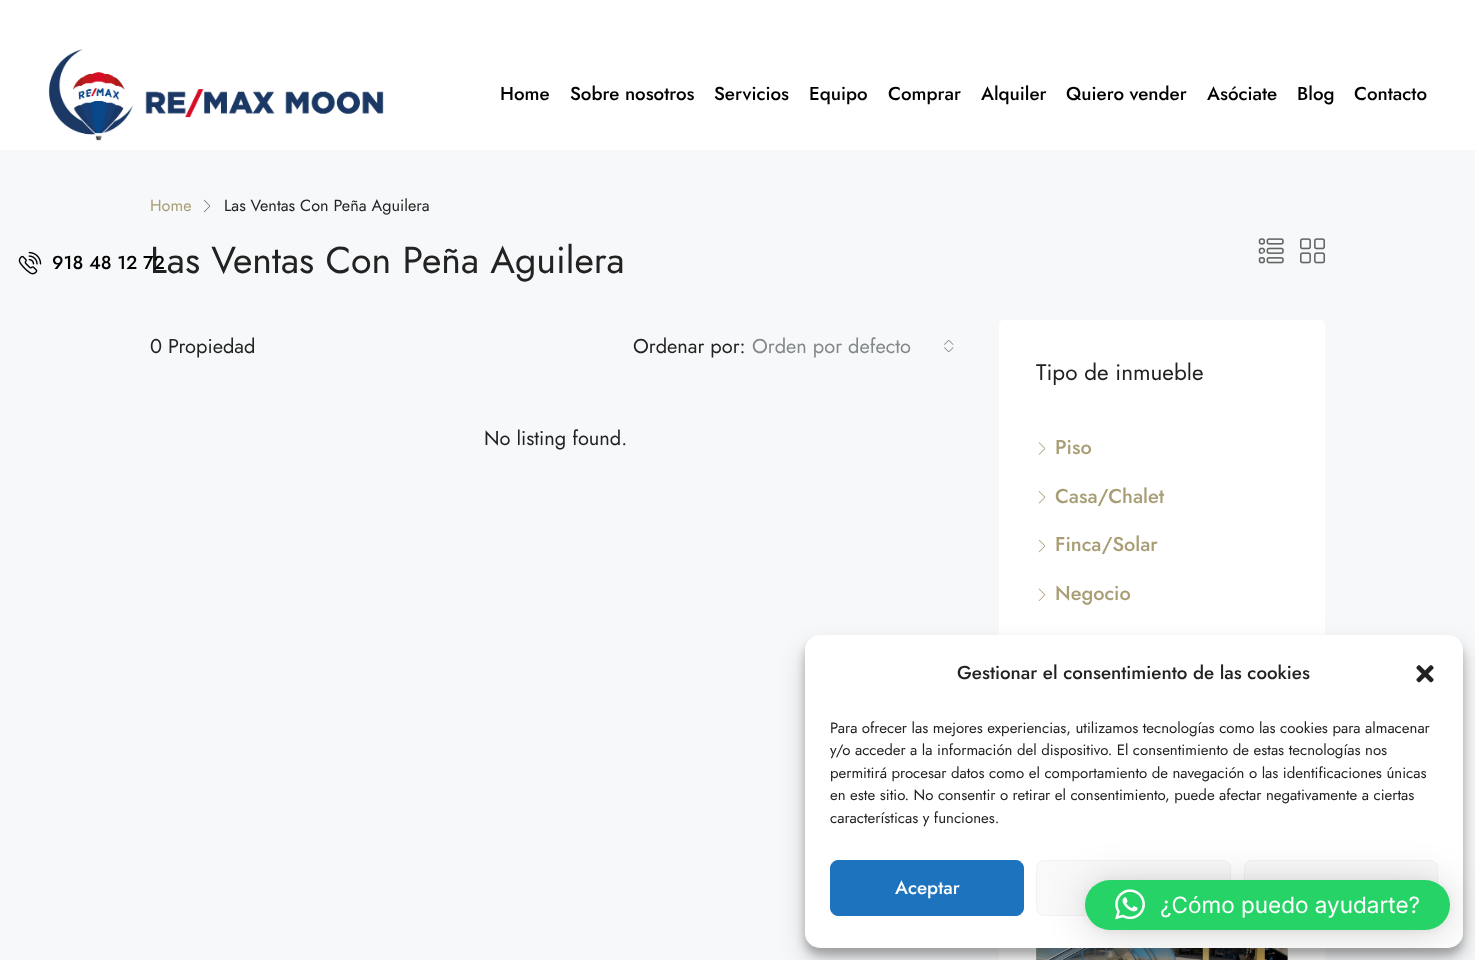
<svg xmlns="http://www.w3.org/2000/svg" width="1475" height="960">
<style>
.a{font:500 18.75px Jost;fill:#000}
.b{font:16.25px Jost;fill:#a89d74}
.c{font:16.25px Jost;fill:#222}
.d{font:37.5px Jost;fill:#222}
.e{font:20px Jost;fill:#222}
.f{font:20px Jost;fill:#828789}
.g{font:22.5px Jost;fill:#222}
.h{font:500 20px Jost;fill:#a89d74}
.i{font:500 18.75px Jost;fill:#222}
.j{font:15px Jost;fill:#222}
.k{font:500 18.75px Jost;fill:#fff}
.l{font:22.5px Inter;fill:#fff}
</style>
<defs>
<linearGradient id="g1" gradientUnits="userSpaceOnUse" x1="1162" y1="836" x2="1162" y2="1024"><stop offset="0" stop-color="#000" stop-opacity="0"/><stop offset="0.5" stop-color="#000" stop-opacity="0"/><stop offset="1" stop-color="#000" stop-opacity="0.75"/></linearGradient>
</defs>
<rect width="100%" height="100%" fill="#f7f8f9"/>
<path fill="#fff" d="M0 0h1475v150H0z"/>
<image href="1.png" x="48" y="49" width="336" height="92"/>
<image href="2.png" x="18" y="251" width="24" height="24"/>
<image href="3.png" x="203" y="199" width="8" height="14"/>
<image href="4.png" x="1258" y="238" width="26" height="26"/>
<image href="5.png" x="1300" y="238" width="25" height="26"/>
<image href="6.png" x="944" y="340" width="10" height="13"/>
<rect fill="#fff" x="999" y="320" width="326" height="380" rx="5"/>
<image href="7.png" x="1038" y="442" width="8" height="13"/>
<image href="8.png" x="1038" y="491" width="8" height="13"/>
<image href="9.png" x="1038" y="539" width="8" height="14"/>
<image href="10.png" x="1038" y="588" width="8" height="13"/>
<path fill="#fff" d="M999 948h326v12H999z"/>
<image href="11.png" x="1036" y="948" width="252" height="12"/>
<path fill="url(#g1)" d="M1036 948h252v12H1036z"/>
<rect fill="#0000003b" filter="blur(4px)" x="805" y="643" width="658" height="312" rx="15"/>
<rect fill="#00000030" filter="blur(12.5px)" x="805" y="648" width="658" height="312" rx="15"/>
<rect fill="#fff" x="805" y="635" width="658" height="313" rx="15"/>
<image href="12.png" x="1416" y="665" width="18" height="18"/>
<rect fill="#1e73be" stroke="#1e73be" x="830.5" y="860.5" width="193" height="55" rx="7.5"/>
<rect fill="#f9f9f9" stroke="#f2f2f2" x="1036.5" y="860.5" width="194" height="55" rx="7.5"/>
<rect fill="#f9f9f9" stroke="#f2f2f2" x="1244.5" y="860.5" width="193" height="55" rx="7.5"/>
<rect fill="#00000029" filter="blur(20px)" x="1085" y="883" width="365" height="50" rx="25"/>
<rect fill="#0000000f" filter="blur(4px)" x="1085" y="881" width="365" height="50" rx="25"/>
<rect fill="#25d366" x="1085" y="880" width="365" height="50" rx="25"/>
<image href="13.png" x="1115" y="889" width="30" height="31"/>
<text class="a" x="500" y="100">Home</text>
<text class="a" x="570" y="100">Sobre nosotros</text>
<text class="a" x="714" y="100">Servicios</text>
<text class="a" x="809" y="100">Equipo</text>
<text class="a" x="888" y="100">Comprar</text>
<text class="a" x="981" y="100">Alquiler</text>
<text class="a" x="1066" y="100">Quiero vender</text>
<text class="a" x="1207" y="100">Asóciate</text>
<text class="a" x="1297" y="100">Blog</text>
<text class="a" x="1354" y="100">Contacto</text>
<text class="b" x="150" y="211">Home</text>
<text class="c" x="224" y="211">Las Ventas Con Peña Aguilera</text>
<text class="d" x="150" y="273">Las Ventas Con Peña Aguilera</text>
<text class="a" x="52" y="269">918 48 12 72</text>
<text class="e" x="150" y="353">0 Propiedad</text>
<text class="e" x="633" y="353">Ordenar por:</text>
<text class="f" x="752" y="353">Orden por defecto</text>
<text class="e" x="484" y="445">No listing found.</text>
<text class="g" x="1036" y="380">Tipo de inmueble</text>
<text class="h" x="1055" y="454">Piso</text>
<text class="h" x="1055" y="503">Casa/Chalet</text>
<text class="h" x="1055" y="551">Finca/Solar</text>
<text class="h" x="1055" y="600">Negocio</text>
<text class="i" x="957" y="679">Gestionar el consentimiento de las cookies</text>
<text class="j" x="830" y="733">Para ofrecer las mejores experiencias, utilizamos tecnologías como las cookies para almacenar</text>
<text class="j" x="830" y="755">y/o acceder a la información del dispositivo. El consentimiento de estas tecnologías nos</text>
<text class="j" x="830" y="778">permitirá procesar datos como el comportamiento de navegación o las identificaciones únicas</text>
<text class="j" x="830" y="800">en este sitio. No consentir o retirar el consentimiento, puede afectar negativamente a ciertas</text>
<text class="j" x="830" y="823">características y funciones.</text>
<text class="k" x="895" y="894">Aceptar</text>
<text class="l" x="1160" y="913">¿Cómo puedo ayudarte?</text>
</svg>
